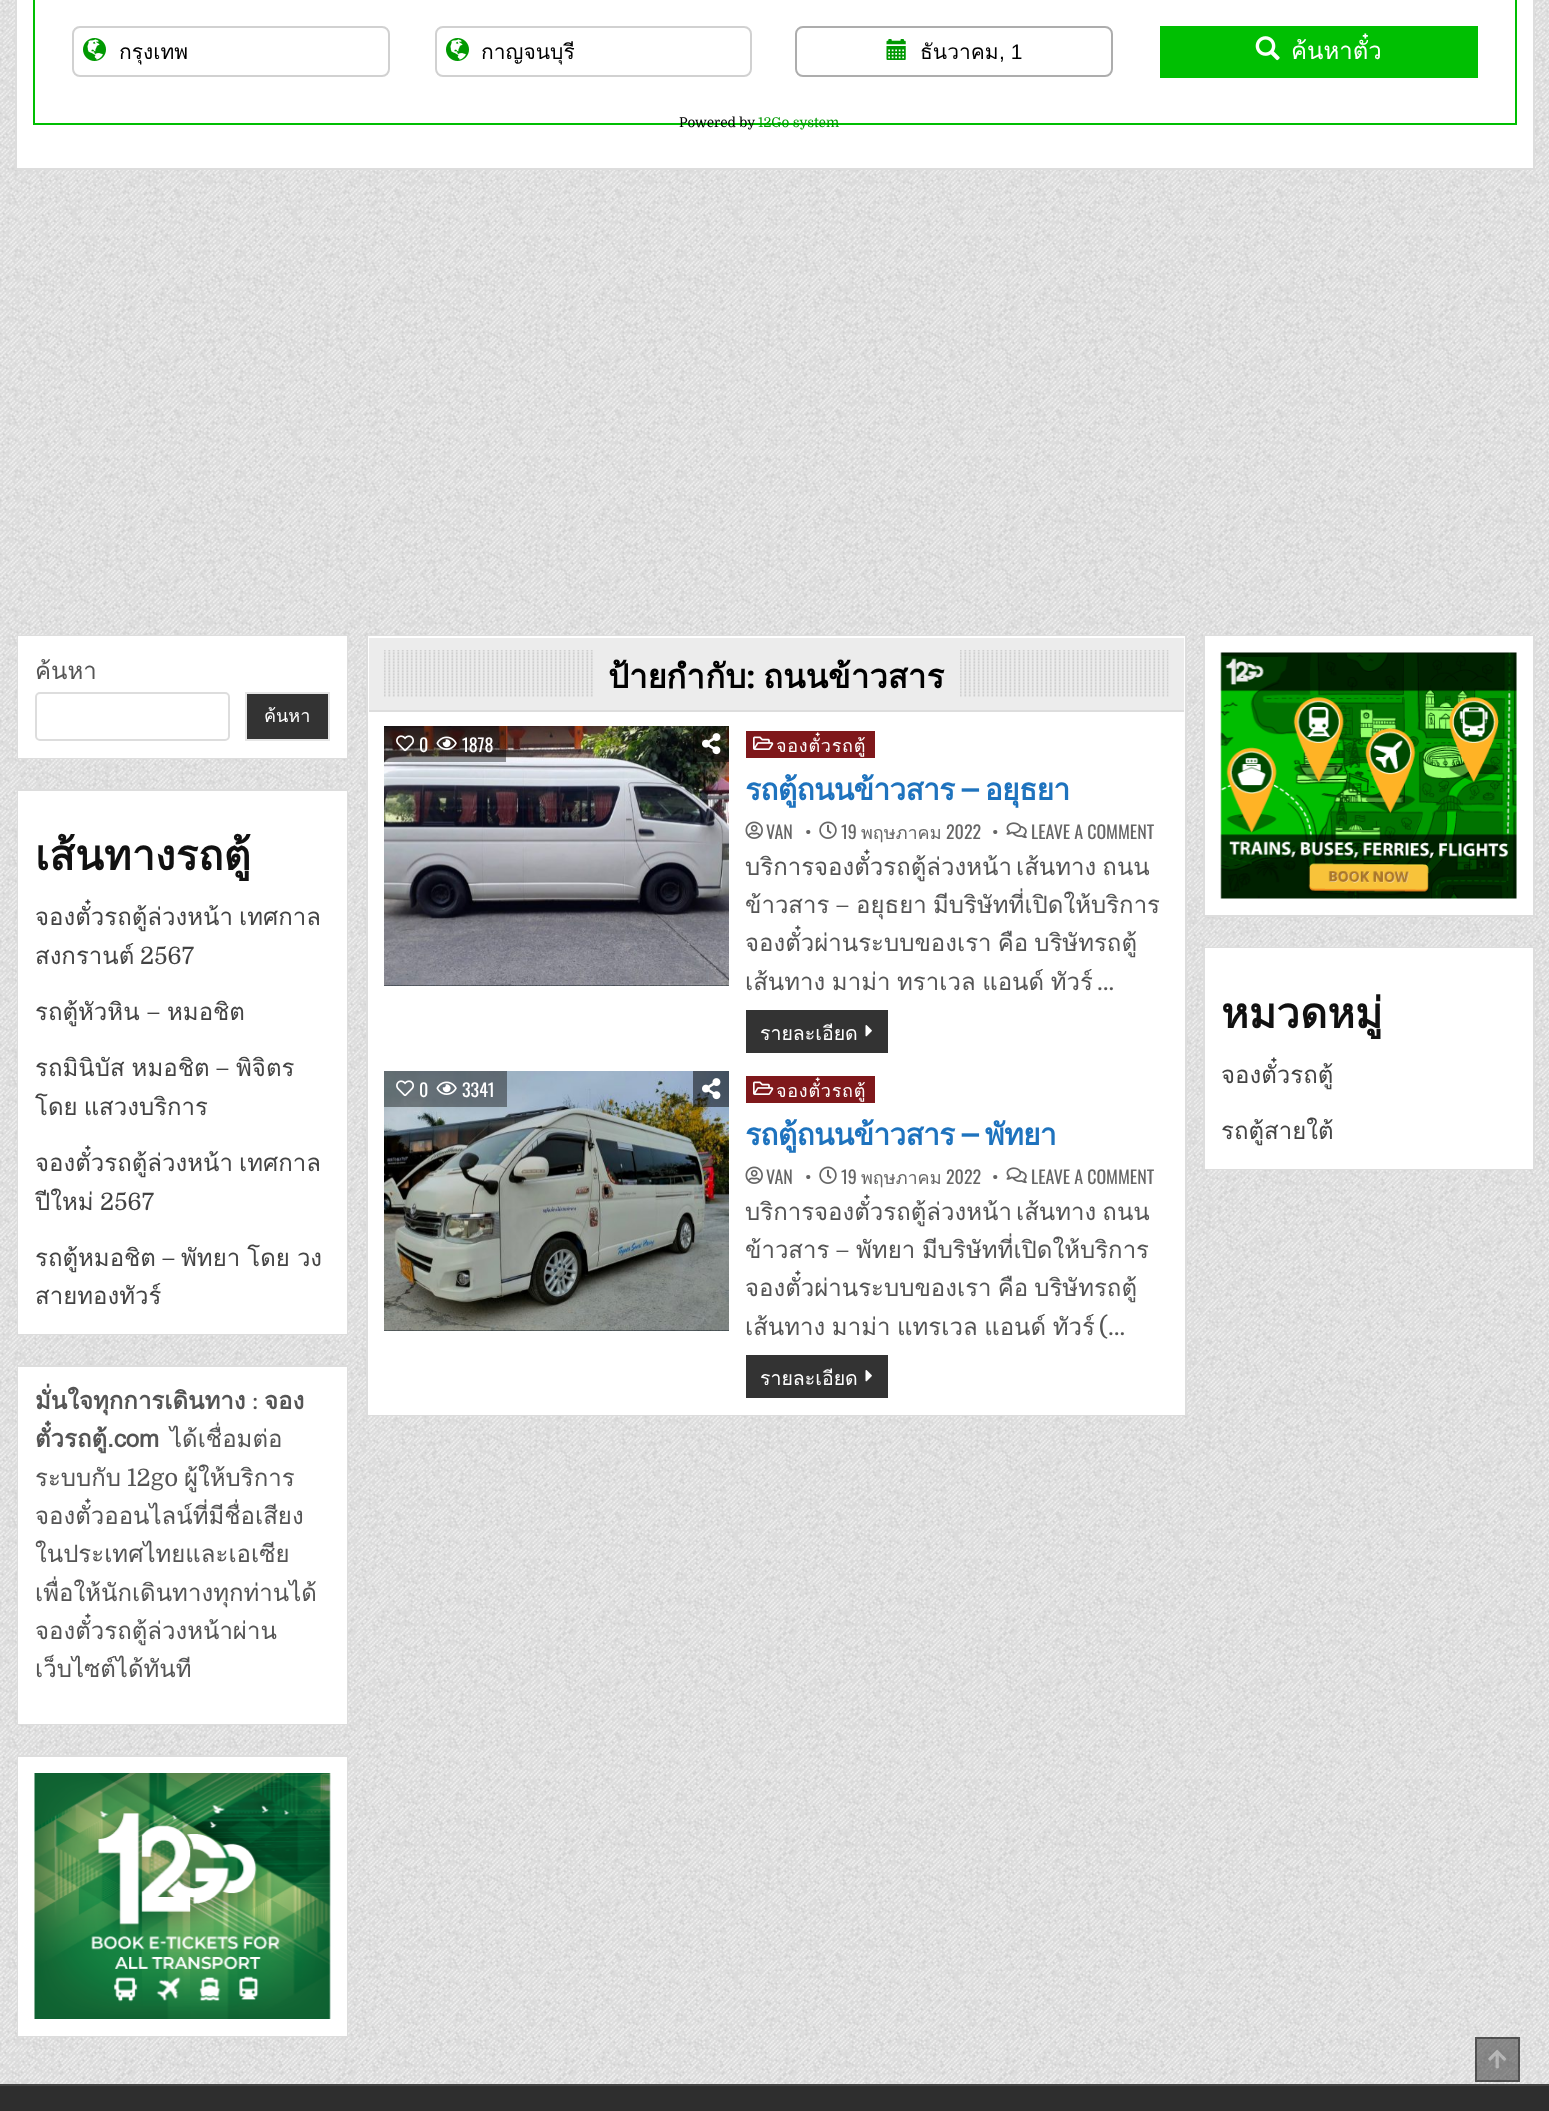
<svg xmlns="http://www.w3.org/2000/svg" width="1549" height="2111">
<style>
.a{font:21px Loma;fill:#000}
.b{font:21px Liberation Sans;fill:#000}
.c{font:24px Loma;fill:#fff}
.d{font:13.5px Domine;fill:#000}
.e{font:13.5px Domine;fill:#009901}
.f{font:24px Loma;fill:#555}
.g{font:18px Loma;fill:#fff}
.h{font:bold 42px Loma;fill:#111}
.i{font:24px Loma;fill:#444}
.j{font:24px Domine;fill:#444}
.k{font:bold 24px Loma;fill:#555}
.l{font:24px Domine;fill:#555}
.m{font:bold 33px Loma;fill:#000}
.n{font:bold 33px Playfair Display;fill:#000}
.o{font:18px Oswald;fill:#fff}
.p{font:18px Loma;letter-spacing:0.75px;fill:#fff}
.q{font:bold 30px Loma;letter-spacing:-0.75px;fill:#1e73be}
.r{font:18px Oswald;fill:#666}
.s{font:18px Loma;fill:#666}
.t{font:19.5px Loma;fill:#fff}
</style>
<rect width="100%" height="100%" fill="#fff"/>
<image href="1.png" x="0" y="0" width="1549" height="2084"/>
<path fill="#fff" stroke="#ddd" stroke-width="2" d="M16 -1h1518v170H16z"/>
<path fill="none" stroke="#00bf02" stroke-width="2" d="M34 -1h1482v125H34z"/>
<rect fill="none" stroke="#d1d1d1" stroke-width="2" x="73" y="27" width="316" height="49" rx="7"/>
<image href="2.png" x="83" y="38" width="23" height="23"/>
<rect fill="none" stroke="#d1d1d1" stroke-width="2" x="436" y="27" width="315" height="49" rx="7"/>
<image href="2.png" x="446" y="38" width="23" height="23"/>
<rect fill="none" stroke="#adadad" stroke-width="2" x="796" y="27" width="316" height="49" rx="7"/>
<image href="3.png" x="886" y="39" width="20" height="21"/>
<path fill="#00bf02" d="M1160 26h318v52H1160z"/>
<image href="4.png" x="1255" y="36" width="25" height="25"/>
<path fill="#fff" d="M20 638h325v118H20z"/>
<path fill="none" stroke="#ddd" stroke-width="2" d="M18 636h329v122H18z"/>
<path fill="none" stroke="#fff" stroke-width="2" d="M19 637h327v120H19z"/>
<rect fill="none" stroke="#ddd" stroke-width="2" x="36" y="693" width="193" height="47" rx="4"/>
<path fill="#333" stroke="#e6e6e6" stroke-width="2" d="M246 693h83v47H246z"/>
<path fill="#fff" d="M20 793h325v539H20z"/>
<path fill="none" stroke="#ddd" stroke-width="2" d="M18 790h329v544H18z"/>
<path fill="none" stroke="#fff" stroke-width="2" d="M19 792h327v541H19z"/>
<path fill="#fff" d="M20 1369h325v353H20z"/>
<path fill="none" stroke="#ddd" stroke-width="2" d="M18 1366h329v358H18z"/>
<path fill="none" stroke="#fff" stroke-width="2" d="M19 1368h327v355H19z"/>
<path fill="#fff" d="M20 1759h325v275H20z"/>
<path fill="none" stroke="#ddd" stroke-width="2" d="M18 1756h329v280H18z"/>
<path fill="none" stroke="#fff" stroke-width="2" d="M19 1758h327v277H19z"/>
<image href="5.png" x="34" y="1773" width="297" height="246"/>
<path fill="#fff" d="M370 712h813v701H370z"/>
<path fill="none" stroke="#ddd" stroke-width="2" d="M367 636h819v779H367z"/>
<path fill="none" stroke="#fff" stroke-width="2" d="M369 637h815v777H369z"/>
<path fill="#ececec" d="M369 638h815v72H369z"/>
<path fill="#ddd" d="M369 710h815v2H369z"/>
<image href="6.png" x="384" y="650" width="785" height="47"/>
<path fill="#ececec" d="M595 650h365v47H595z"/>
<path fill="#1e2b34" d="M384 985h345v1H384z"/>
<image href="7.png" x="384" y="985" width="345" height="1"/>
<image href="8.png" x="384" y="726" width="345" height="260"/>
<path fill="#00000066" d="M384 726h122v36H384z"/>
<image href="9.png" x="396" y="735" width="18" height="17"/>
<image href="10.png" x="436" y="736" width="21" height="14"/>
<path fill="#00000080" d="M693 726h36v36H693z"/>
<image href="11.png" x="702" y="733" width="19" height="22"/>
<path fill="#7f181b" d="M746 731h129v27H746z"/>
<image href="12.png" x="753" y="736" width="21" height="14"/>
<image href="13.png" x="745" y="821" width="18" height="18"/>
<image href="14.png" x="819" y="821" width="18" height="18"/>
<image href="15.png" x="1006" y="822" width="21" height="17"/>
<path fill="#333" d="M746 1010h142v43H746z"/>
<image href="16.png" x="865" y="1025" width="7" height="12"/>
<path fill="#1e2b34" d="M384 1330h345v1H384z"/>
<image href="7.png" x="384" y="1330" width="345" height="1"/>
<image href="17.png" x="384" y="1071" width="345" height="260"/>
<path fill="#00000066" d="M384 1071h123v36H384z"/>
<image href="18.png" x="396" y="1080" width="18" height="17"/>
<image href="19.png" x="436" y="1081" width="21" height="14"/>
<path fill="#00000080" d="M693 1071h36v36H693z"/>
<image href="20.png" x="702" y="1078" width="19" height="22"/>
<path fill="#7f181b" d="M746 1076h129v27H746z"/>
<image href="12.png" x="753" y="1081" width="21" height="14"/>
<image href="13.png" x="745" y="1166" width="18" height="18"/>
<image href="14.png" x="819" y="1166" width="18" height="18"/>
<image href="15.png" x="1006" y="1167" width="21" height="17"/>
<path fill="#333" d="M746 1355h142v43H746z"/>
<image href="16.png" x="865" y="1370" width="7" height="12"/>
<path fill="#fff" d="M1207 638h324v275H1207z"/>
<path fill="none" stroke="#ddd" stroke-width="2" d="M1204 636h330v280H1204z"/>
<path fill="none" stroke="#fff" stroke-width="2" d="M1206 637h326v277H1206z"/>
<image href="21.png" x="1220" y="652" width="297" height="247"/>
<path fill="#fff" d="M1207 950h324v217H1207z"/>
<path fill="none" stroke="#ddd" stroke-width="2" d="M1204 948h330v221H1204z"/>
<path fill="none" stroke="#fff" stroke-width="2" d="M1206 949h326v219H1206z"/>
<path fill="#00000066" d="M1475 2037h45v45H1475z"/>
<path fill="none" stroke="#00000066" stroke-width="2" d="M1476 2038h43v43H1476z"/>
<image href="22.png" x="1488" y="2050" width="18" height="19"/>
<path fill="#2e2e2e" d="M0 2086h1549v25H0z"/>
<path fill="#444" d="M0 2084h1549v2H0z"/>
<text class="a" x="119" y="59">กรุงเทพ</text>
<text class="a" x="481" y="59">กาญจนบุรี</text>
<text class="a" x="920" y="59">ธันวาคม</text>
<text class="b" x="999" y="59">, 1</text>
<text class="c" x="1291" y="59">ค้นหาตั๋ว</text>
<text class="d" x="679" y="127">Powered by</text>
<text class="e" x="758" y="127">12Go system</text>
<text class="f" x="35" y="679">ค้นหา</text>
<text class="g" x="264" y="722">ค้นหา</text>
<text class="h" x="35" y="870">เส้นทางรถตู้</text>
<text class="i" x="35" y="925">จองตั๋วรถตู้ล่วงหน้า</text>
<text class="i" x="239" y="925">เทศกาล</text>
<text class="i" x="35" y="964">สงกรานต์</text>
<text class="j" x="140" y="964">2567</text>
<text class="i" x="35" y="1020">รถตู้หัวหิน</text>
<text class="j" x="146" y="1020">–</text>
<text class="i" x="167" y="1020">หมอชิต</text>
<text class="i" x="35" y="1076" word-spacing="-1">รถมินิบัส หมอชิต</text>
<text class="j" x="215" y="1076">–</text>
<text class="i" x="236" y="1076">พิจิตร</text>
<text class="i" x="35" y="1115" word-spacing="-2">โดย แสวงบริการ</text>
<text class="i" x="35" y="1171" word-spacing="-2">จองตั๋วรถตู้ล่วงหน้า เทศกาล</text>
<text class="i" x="35" y="1210">ปีใหม่</text>
<text class="j" x="100" y="1210">2567</text>
<text class="i" x="35" y="1266">รถตู้หมอชิต</text>
<text class="j" x="161" y="1266">–</text>
<text class="i" x="181" y="1266" word-spacing="-1">พัทยา โดย วง</text>
<text class="i" x="35" y="1304">สายทองทัวร์</text>
<text class="k" x="35" y="1409">มั่นใจทุกการเดินทาง</text>
<text class="l" x="252" y="1409">:</text>
<text class="k" x="264" y="1409">จอง</text>
<text class="k" x="35" y="1447">ตั๋วรถตู้.com</text>
<text class="f" x="170" y="1447">ได้เชื่อมต่อ</text>
<text class="f" x="35" y="1486">ระบบกับ</text>
<text class="l" x="127" y="1486">12go</text>
<text class="f" x="184" y="1486">ผู้ให้บริการ</text>
<text class="f" x="35" y="1524">จองตั๋วออนไลน์ที่มีชื่อเสียง</text>
<text class="f" x="35" y="1562">ในประเทศไทยและเอเซีย</text>
<text class="f" x="35" y="1601">เพื่อให้นักเดินทางทุกท่านได้</text>
<text class="f" x="35" y="1639">จองตั๋วรถตู้ล่วงหน้าผ่าน</text>
<text class="f" x="35" y="1677">เว็บไซต์ได้ทันที</text>
<text class="m" x="608" y="688">ป้ายกำกับ</text>
<text class="n" x="746" y="688">:</text>
<text class="m" x="763" y="688">ถนนข้าวสาร</text>
<text class="o" x="419" y="752">0</text>
<text class="o" x="462" y="752">1878</text>
<text class="p" x="776" y="752">จองตั๋วรถตู้</text>
<text class="q" x="745" y="800" word-spacing="-2">รถตู้ถนนข้าวสาร – อยุธยา</text>
<text class="r" x="766" y="839">VAN</text>
<text class="r" x="805" y="839">•</text>
<text class="r" x="841" y="839">19</text>
<text class="s" x="861" y="839">พฤษภาคม</text>
<text class="r" x="946" y="839">2022</text>
<text class="r" x="992" y="839">•</text>
<text class="r" x="1031" y="839">LEAVE A COMMENT</text>
<text class="f" x="745" y="875">บริการจองตั๋วรถตู้ล่วงหน้า</text>
<text class="f" x="1016" y="875" word-spacing="-2">เส้นทาง ถนน</text>
<text class="f" x="745" y="913">ข้าวสาร</text>
<text class="l" x="835" y="913">–</text>
<text class="f" x="856" y="913">อยุธยา</text>
<text class="f" x="933" y="913">มีบริษัทที่เปิดให้บริการ</text>
<text class="f" x="745" y="951" word-spacing="-2">จองตั๋วผ่านระบบของเรา คือ บริษัทรถตู้</text>
<text class="f" x="745" y="990" word-spacing="-1.5">เส้นทาง มาม่า ทราเวล แอนด์ ทัวร์</text>
<text class="l" x="1097" y="990">…</text>
<text class="t" x="760" y="1040">รายละเอียด</text>
<text class="o" x="419" y="1097">0</text>
<text class="o" x="462" y="1097">3341</text>
<text class="p" x="776" y="1097">จองตั๋วรถตู้</text>
<text class="q" x="745" y="1145" word-spacing="-2">รถตู้ถนนข้าวสาร – พัทยา</text>
<text class="r" x="766" y="1184">VAN</text>
<text class="r" x="805" y="1184">•</text>
<text class="r" x="841" y="1184">19</text>
<text class="s" x="861" y="1184">พฤษภาคม</text>
<text class="r" x="946" y="1184">2022</text>
<text class="r" x="992" y="1184">•</text>
<text class="r" x="1031" y="1184">LEAVE A COMMENT</text>
<text class="f" x="745" y="1220">บริการจองตั๋วรถตู้ล่วงหน้า</text>
<text class="f" x="1016" y="1220" word-spacing="-2">เส้นทาง ถนน</text>
<text class="f" x="745" y="1258">ข้าวสาร</text>
<text class="l" x="835" y="1258">–</text>
<text class="f" x="856" y="1258">พัทยา</text>
<text class="f" x="922" y="1258">มีบริษัทที่เปิดให้บริการ</text>
<text class="f" x="745" y="1296" word-spacing="-2">จองตั๋วผ่านระบบของเรา คือ บริษัทรถตู้</text>
<text class="f" x="745" y="1335" word-spacing="-1.5">เส้นทาง มาม่า แทรเวล แอนด์ ทัวร์</text>
<text class="l" x="1099" y="1335">(…</text>
<text class="t" x="760" y="1385">รายละเอียด</text>
<text class="h" x="1221" y="1028">หมวดหมู่</text>
<text class="i" x="1221" y="1083">จองตั๋วรถตู้</text>
<text class="i" x="1221" y="1139">รถตู้สายใต้</text>
</svg>
